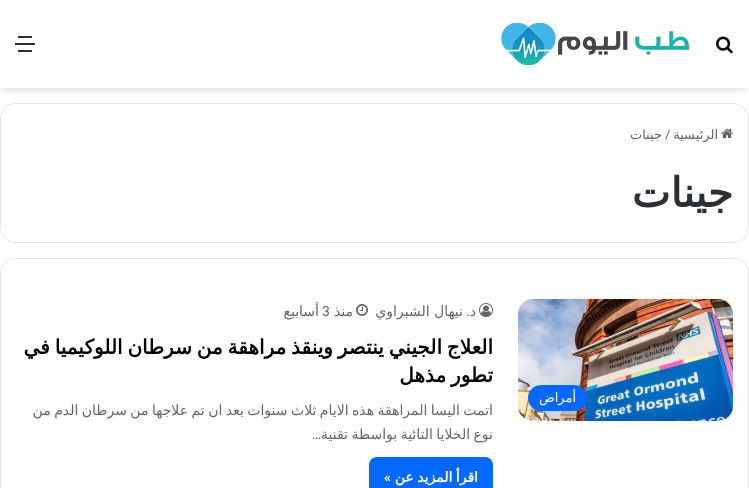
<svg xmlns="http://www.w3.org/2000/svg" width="749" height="488">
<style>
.a{font:13px DejaVu Sans;direction:rtl;fill:#666}
.b{font:13px Roboto;fill:#666}
.c{font:bold 41px DejaVu Sans;direction:rtl;fill:#2c2f34}
.d{font:13px DejaVu Sans;direction:rtl;fill:#fff}
.e{font:14px DejaVu Sans;direction:rtl;fill:#666}
.f{font:14px Roboto;direction:rtl;fill:#666}
.g{font:14px Roboto;fill:#666}
.h{font:bold 20px DejaVu Sans;direction:rtl;fill:#000}
.i{font:bold 14px DejaVu Sans;direction:rtl;fill:#fff}
.j{font:600 14px Roboto;direction:rtl;fill:#fff}
</style>
<defs>
<clipPath id="clip1"><path d="M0 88h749v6H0z"/></clipPath>
</defs>
<rect width="100%" height="100%" fill="#fff"/>
<g clip-path="url(#clip1)">
<path fill="#0000001a" filter="blur(3.5px)" d="M0 3h749v88H0z"/>
</g>
<image href="1.png" x="716" y="36" width="17" height="18"/>
<image href="2.png" x="501" y="23" width="188" height="42"/>
<path fill="#2c2f34" d="M15 43h20v2H15z"/>
<path fill="#2c2f34" d="M18 36h14v2H18z"/>
<path fill="#2c2f34" d="M18 50h14v2H18z"/>
<rect fill="none" stroke="#e6e6e6" x="0.5" y="103.5" width="748" height="139" rx="14.5"/>
<image href="3.png" x="721" y="128" width="12" height="11"/>
<rect fill="none" stroke="#e6e6e6" x="0.5" y="258.5" width="748" height="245" rx="14.5"/>
<image href="4.png" x="518" y="299" width="215" height="122"/>
<rect fill="#0669ff" x="528" y="385" width="59" height="26" rx="13"/>
<image href="5.png" x="479" y="303" width="14" height="14"/>
<image href="6.png" x="356" y="304" width="12" height="12"/>
<rect fill="#0669ff" x="369" y="457" width="124" height="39" rx="8"/>
<text class="a" x="718" y="139">الرئيسية</text>
<text class="b" x="665" y="139">/</text>
<text class="a" x="662" y="139">جينات</text>
<text class="c" x="733" y="207">جينات</text>
<text class="d" x="576" y="402">أمراض</text>
<text class="e" x="476" y="316">د</text>
<text class="f" x="470" y="316">.</text>
<text class="e" x="463" y="316">نيهال الشبراوي</text>
<text class="e" x="353" y="316">منذ</text>
<text class="g" x="322" y="316">3</text>
<text class="e" x="319" y="316">أسابيع</text>
<text class="h" x="493" y="354" word-spacing="-1.5">العلاج الجيني ينتصر وينقذ مراهقة من سرطان اللوكيميا في</text>
<text class="h" x="493" y="382" word-spacing="-1.5">تطور مذهل</text>
<text class="e" x="493" y="415" word-spacing="-1">اتمت اليسا المراهقة هذه الايام ثلاث سنوات بعد ان تم علاجها من سرطان الدم من</text>
<text class="e" x="493" y="439" word-spacing="-1">نوع الخلايا التائية بواسطة تقنية</text>
<text class="f" x="321" y="439">…</text>
<text class="i" x="478" y="482" word-spacing="-1">اقرأ المزيد عن</text>
<text class="j" x="391" y="482">»</text>
</svg>
